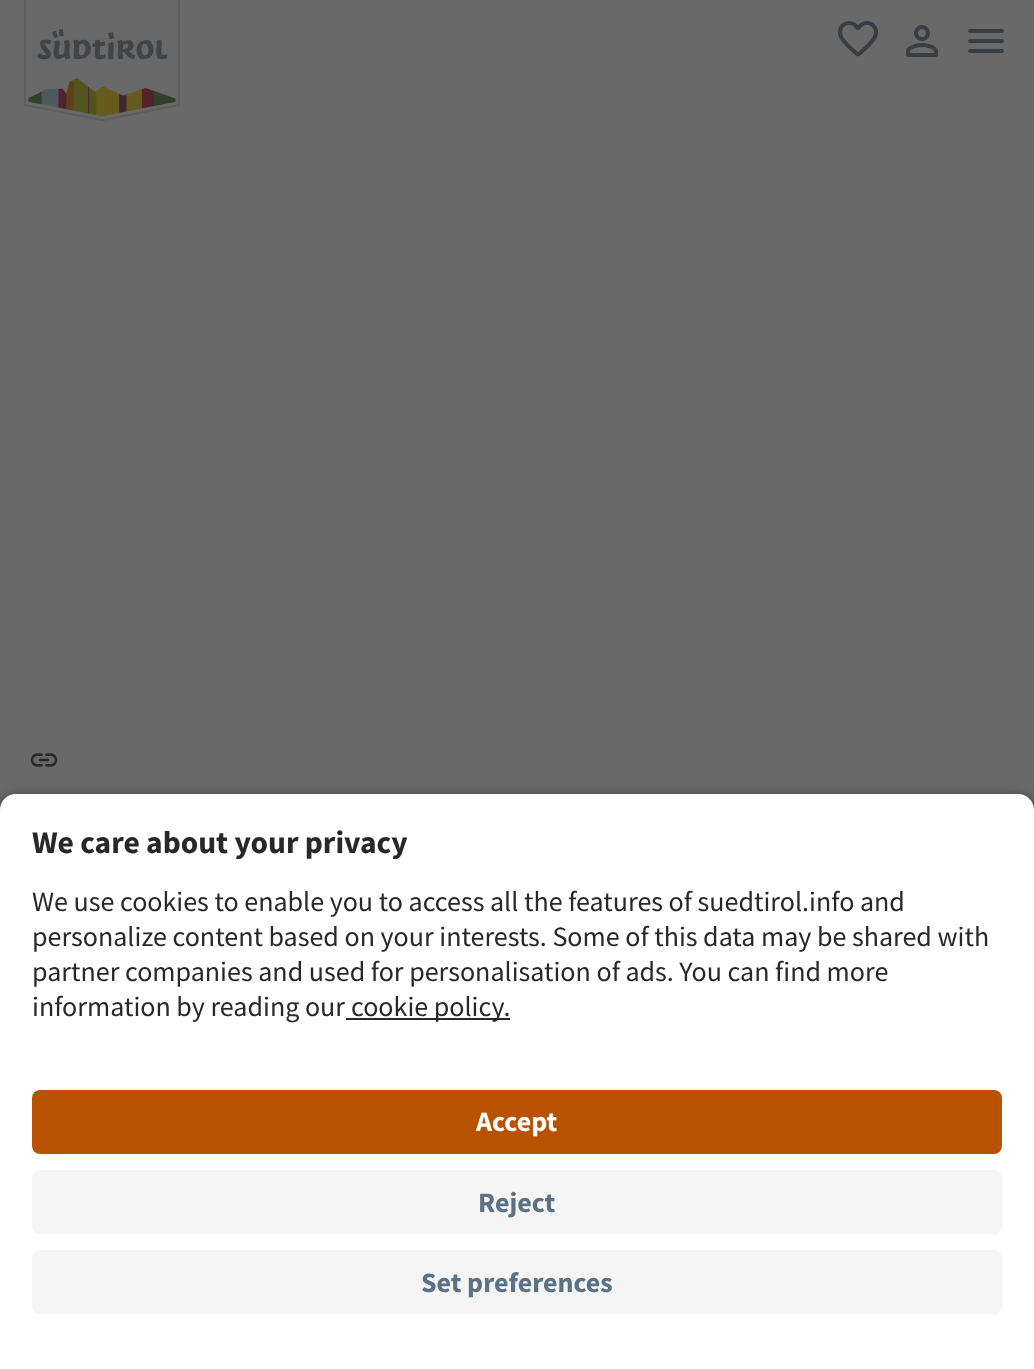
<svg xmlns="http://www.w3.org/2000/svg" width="1034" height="1369">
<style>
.a{font:bold 31.5px Source Sans Pro;fill:#282828}
.b{font:28px Source Sans Pro;fill:#282828}
.c{font:bold 28px Source Sans Pro;fill:#fff}
.d{font:bold 28px Source Sans Pro;fill:#5b7286}
</style>
<rect width="100%" height="100%" fill="#696969"/>
<image href="1.png" x="24" y="0" width="156" height="121"/>
<image href="2.png" x="838" y="21" width="40" height="36"/>
<image href="3.png" x="906" y="25" width="32" height="32"/>
<image href="4.png" x="968" y="29" width="36" height="24"/>
<image href="5.png" x="30" y="753" width="28" height="14"/>
<rect fill="#000000cc" filter="blur(7px)" y="800" width="1034" height="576" rx="16"/>
<path fill="#fff" d="M16 794h1002c9 0 16 7 16 16v256h-1034v-256c0-9 7-16 16-16z"/>
<path fill="#282828" d="M346 1018h164v2H346z"/>
<path fill="#fff" d="M0 1066h1034v303H0z"/>
<rect fill="#b95200" x="32" y="1090" width="970" height="64" rx="8"/>
<rect fill="#f5f5f5" x="32" y="1170" width="970" height="64" rx="8"/>
<rect fill="#f5f5f5" x="32" y="1250" width="970" height="64" rx="8"/>
<text class="a" x="32" y="853">We care about your privacy</text>
<text class="b" x="32" y="911">We use cookies to enable you to access all the features of suedtirol.info and</text>
<text class="b" x="32" y="946">personalize content based on your interests. Some of this data may be shared with</text>
<text class="b" x="32" y="981">partner companies and used for personalisation of ads. You can find more</text>
<text class="b" x="32" y="1016">information by reading our</text>
<text class="b" x="351" y="1016">cookie policy.</text>
<text class="c" x="476" y="1131">Accept</text>
<text class="d" x="478" y="1212">Reject</text>
<text class="d" x="421" y="1292">Set preferences</text>
</svg>
